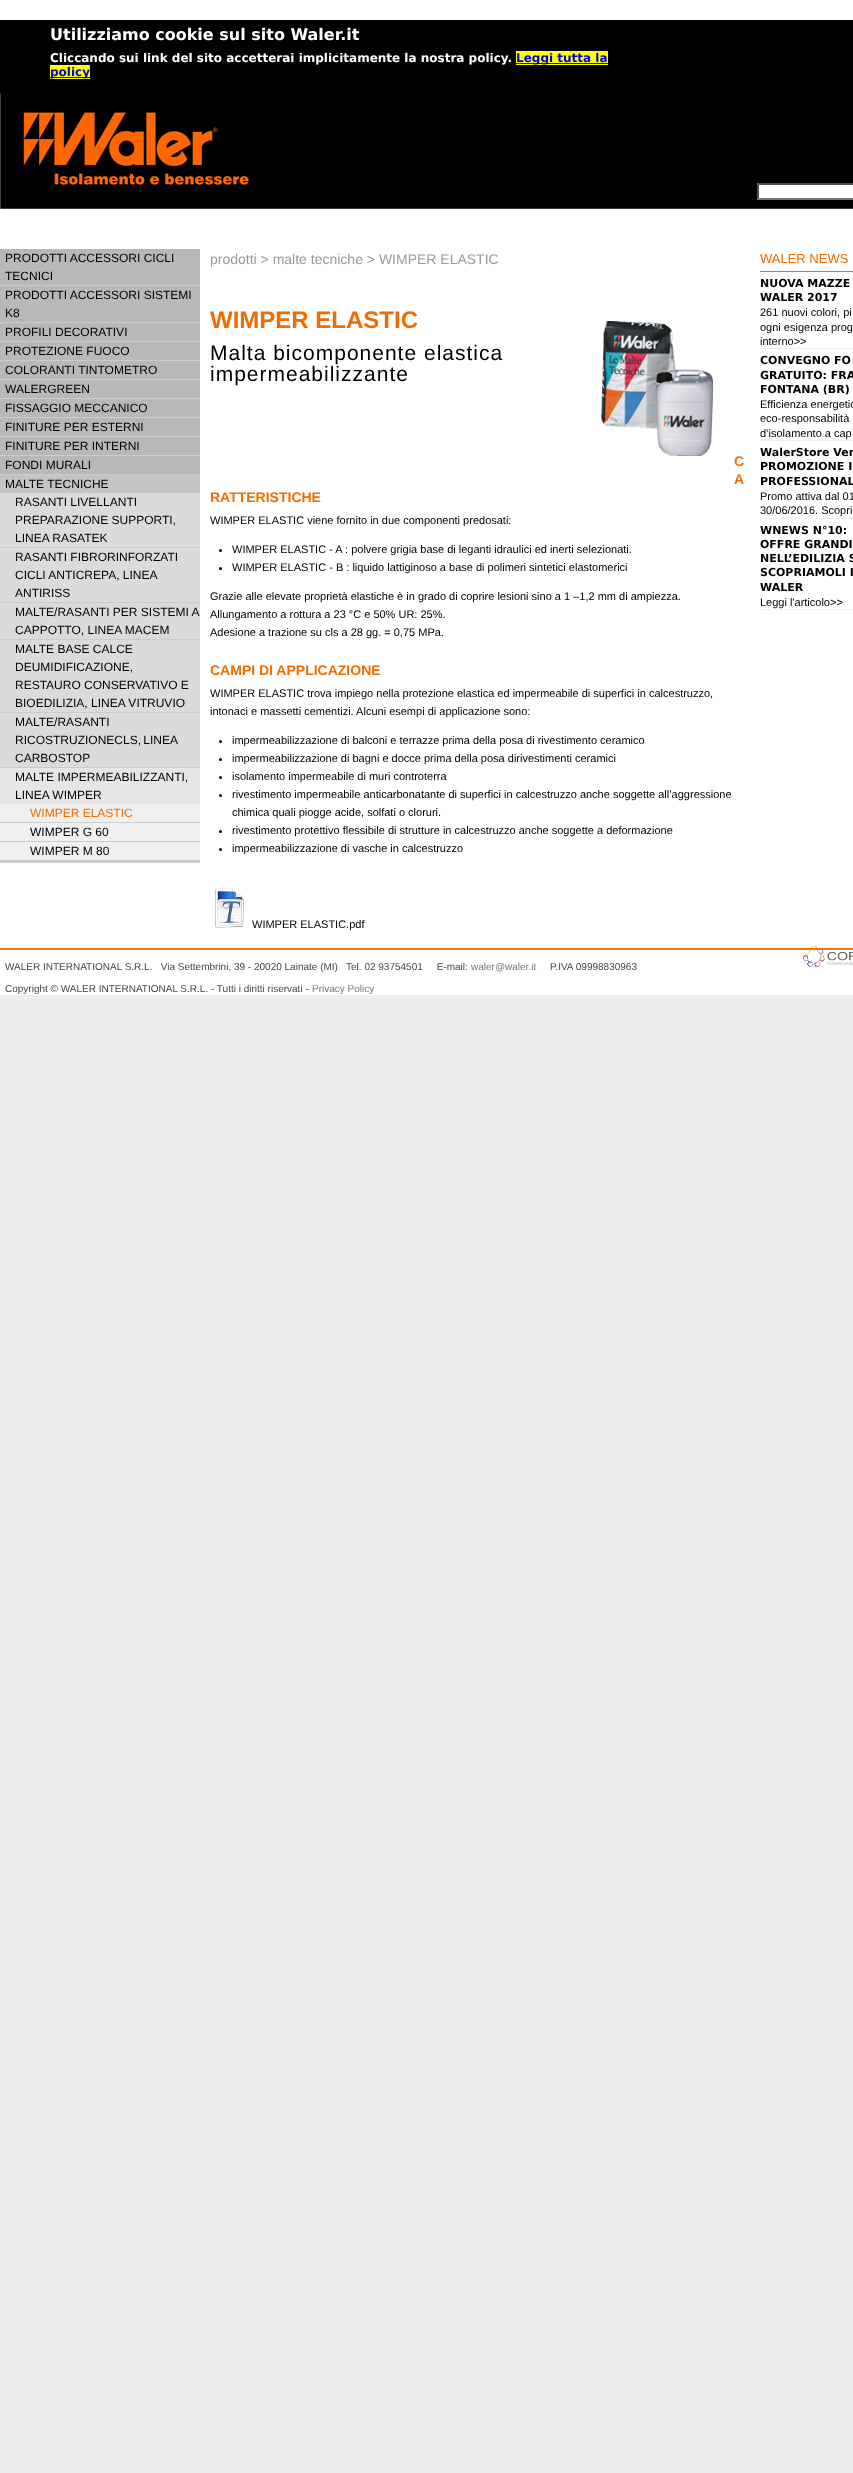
<svg xmlns="http://www.w3.org/2000/svg" width="853" height="2473">
<style>
.a{font:bold 16px DejaVu Sans;fill:#fff}
.b{font:bold 12px DejaVu Sans;fill:#fff}
.c{font:bold 12px DejaVu Sans;fill:#00e}
.d{font:12px Liberation Sans;fill:#000}
.e{font:12px Liberation Sans;fill:#f06c00}
.f{font:14px Liberation Sans;fill:#999}
.g{font:bold 24px Liberation Sans;fill:#f06c00}
.h{font:21px Liberation Sans;letter-spacing:1px;fill:#000}
.i{font:bold 14px Liberation Sans;fill:#f06c00}
.j{font:11px Liberation Sans;fill:#000}
.k{font:13px Liberation Sans;fill:#f06c00}
.l{font:bold 11px DejaVu Sans;fill:#000}
.m{font:10px Liberation Sans;fill:#444}
.n{font:10px Liberation Sans;fill:#777}
</style>
<rect width="100%" height="100%" fill="#eee"/>
<path fill="#fff" d="M0 0h853v20H0z"/>
<path fill="#000" d="M0 20h853v73H0z"/>
<path fill="#ff0" d="M516 51h92v14H516z"/>
<path fill="#00e" d="M516 63h92v1H516z"/>
<path fill="#ff0" d="M50 65h40v14H50z"/>
<path fill="#00e" d="M50 77h40v1H50z"/>
<path fill="#fff" d="M0 209h853v786H0z"/>
<image href="1.png" x="0" y="93" width="853" height="116"/>
<path fill="#fff" d="M757 183h96v17H757z"/>
<path fill="#4f4f4f" d="M757 183h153l-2 2h-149z"/>
<path fill="#767676" d="M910 200h-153l2-2h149z"/>
<path fill="#4f4f4f" d="M757 200v-17l2 2v13z"/>
<path fill="#b8b8b8" d="M0 249h200v36H0z"/>
<path fill="#ccc" d="M0 285h200v1H0z"/>
<path fill="#b8b8b8" d="M0 286h200v36H0z"/>
<path fill="#ccc" d="M0 322h200v1H0z"/>
<path fill="#b8b8b8" d="M0 323h200v18H0z"/>
<path fill="#ccc" d="M0 341h200v1H0z"/>
<path fill="#b8b8b8" d="M0 342h200v18H0z"/>
<path fill="#ccc" d="M0 360h200v1H0z"/>
<path fill="#b8b8b8" d="M0 361h200v18H0z"/>
<path fill="#ccc" d="M0 379h200v1H0z"/>
<path fill="#b8b8b8" d="M0 380h200v18H0z"/>
<path fill="#ccc" d="M0 398h200v1H0z"/>
<path fill="#b8b8b8" d="M0 399h200v18H0z"/>
<path fill="#ccc" d="M0 417h200v1H0z"/>
<path fill="#b8b8b8" d="M0 418h200v18H0z"/>
<path fill="#ccc" d="M0 436h200v1H0z"/>
<path fill="#b8b8b8" d="M0 437h200v18H0z"/>
<path fill="#ccc" d="M0 455h200v1H0z"/>
<path fill="#b8b8b8" d="M0 456h200v18H0z"/>
<path fill="#ccc" d="M0 474h200v1H0z"/>
<path fill="#c4c4c4" d="M0 475h200v18H0z"/>
<path fill="#ccc" d="M0 860h200v3H0z"/>
<path fill="#dbdbdb" d="M0 493h200v54H0z"/>
<path fill="#ccc" d="M0 547h200v1H0z"/>
<path fill="#dbdbdb" d="M0 548h200v54H0z"/>
<path fill="#ccc" d="M0 602h200v1H0z"/>
<path fill="#dbdbdb" d="M0 603h200v36H0z"/>
<path fill="#ccc" d="M0 639h200v1H0z"/>
<path fill="#dbdbdb" d="M0 640h200v72H0z"/>
<path fill="#ccc" d="M0 712h200v1H0z"/>
<path fill="#dbdbdb" d="M0 713h200v54H0z"/>
<path fill="#ccc" d="M0 767h200v1H0z"/>
<path fill="#e6e6e6" d="M0 768h200v36H0z"/>
<path fill="#f0f0f0" d="M0 804h200v18H0z"/>
<path fill="#ccc" d="M0 822h200v1H0z"/>
<path fill="#f0f0f0" d="M0 823h200v18H0z"/>
<path fill="#ccc" d="M0 841h200v1H0z"/>
<path fill="#f0f0f0" d="M0 842h200v18H0z"/>
<image href="2.png" x="601" y="321" width="112" height="135"/>
<circle fill="#000" cx="220.5" cy="550.5" r="1.5"/>
<circle fill="#000" cx="220.5" cy="568.5" r="1.5"/>
<circle fill="#000" cx="220.5" cy="741.5" r="1.5"/>
<circle fill="#000" cx="220.5" cy="759.5" r="1.5"/>
<circle fill="#000" cx="220.5" cy="777.5" r="1.5"/>
<circle fill="#000" cx="220.5" cy="795.5" r="1.5"/>
<circle fill="#000" cx="220.5" cy="831.5" r="1.5"/>
<circle fill="#000" cx="220.5" cy="849.5" r="1.5"/>
<image href="3.png" x="215" y="888" width="29" height="40"/>
<path fill="#f06c00" d="M760 271h93v1H760z"/>
<path fill="#eee" d="M760 348h93v1H760z"/>
<path fill="#eee" d="M760 440h93v1H760z"/>
<path fill="#eee" d="M760 518h93v1H760z"/>
<path fill="#eee" d="M760 609h93v1H760z"/>
<image href="4.png" x="803" y="945" width="50" height="22"/>
<path fill="#e77817" d="M0 948h853v2H0z"/>
<text class="a" x="50" y="40">Utilizziamo cookie sul sito Waler.it</text>
<text class="b" x="50" y="62">Cliccando sui link del sito accetterai implicitamente la nostra policy.</text>
<text class="c" x="516" y="62">Leggi tutta la</text>
<text class="c" x="50" y="76">policy</text>
<text class="d" x="5" y="262">PRODOTTI ACCESSORI CICLI</text>
<text class="d" x="5" y="280">TECNICI</text>
<text class="d" x="5" y="299">PRODOTTI ACCESSORI SISTEMI</text>
<text class="d" x="5" y="317">K8</text>
<text class="d" x="5" y="336">PROFILI DECORATIVI</text>
<text class="d" x="5" y="355">PROTEZIONE FUOCO</text>
<text class="d" x="5" y="374">COLORANTI TINTOMETRO</text>
<text class="d" x="5" y="393">WALERGREEN</text>
<text class="d" x="5" y="412">FISSAGGIO MECCANICO</text>
<text class="d" x="5" y="431">FINITURE PER ESTERNI</text>
<text class="d" x="5" y="450">FINITURE PER INTERNI</text>
<text class="d" x="5" y="469">FONDI MURALI</text>
<text class="d" x="5" y="488">MALTE TECNICHE</text>
<text class="d" x="15" y="506">RASANTI LIVELLANTI</text>
<text class="d" x="15" y="524">PREPARAZIONE SUPPORTI,</text>
<text class="d" x="15" y="542">LINEA RASATEK</text>
<text class="d" x="15" y="561">RASANTI FIBRORINFORZATI</text>
<text class="d" x="15" y="579">CICLI ANTICREPA, LINEA</text>
<text class="d" x="15" y="597">ANTIRISS</text>
<text class="d" x="15" y="616">MALTE/RASANTI PER SISTEMI A</text>
<text class="d" x="15" y="634">CAPPOTTO, LINEA MACEM</text>
<text class="d" x="15" y="653">MALTE BASE CALCE</text>
<text class="d" x="15" y="671">DEUMIDIFICAZIONE,</text>
<text class="d" x="15" y="689">RESTAURO CONSERVATIVO E</text>
<text class="d" x="15" y="707">BIOEDILIZIA, LINEA VITRUVIO</text>
<text class="d" x="15" y="726">MALTE/RASANTI</text>
<text class="d" x="15" y="744" word-spacing="-1">RICOSTRUZIONECLS, LINEA</text>
<text class="d" x="15" y="762">CARBOSTOP</text>
<text class="d" x="15" y="781">MALTE IMPERMEABILIZZANTI,</text>
<text class="d" x="15" y="799">LINEA WIMPER</text>
<text class="e" x="30" y="817">WIMPER ELASTIC</text>
<text class="d" x="30" y="836">WIMPER G 60</text>
<text class="d" x="30" y="855">WIMPER M 80</text>
<text class="f" x="210" y="264">prodotti &gt; malte tecniche &gt; WIMPER ELASTIC</text>
<text class="g" x="210" y="328">WIMPER ELASTIC</text>
<text class="h" x="210" y="360">Malta bicomponente elastica</text>
<text class="h" x="210" y="381">impermeabilizzante</text>
<text class="i" x="734" y="466">C</text>
<text class="i" x="734" y="484">A</text>
<text class="i" x="210" y="502">RATTERISTICHE</text>
<text class="j" x="210" y="524">WIMPER ELASTIC viene fornito in due componenti predosati:</text>
<text class="j" x="232" y="553">WIMPER ELASTIC - A : polvere grigia base di leganti idraulici ed inerti selezionati.</text>
<text class="j" x="232" y="571">WIMPER ELASTIC - B : liquido lattiginoso a base di polimeri sintetici elastomerici</text>
<text class="j" x="210" y="600">Grazie alle elevate proprietà elastiche è in grado di coprire lesioni sino a 1 –1,2 mm di ampiezza.</text>
<text class="j" x="210" y="618">Allungamento a rottura a 23 °C e 50% UR: 25%.</text>
<text class="j" x="210" y="636">Adesione a trazione su cls a 28 gg. = 0,75 MPa.</text>
<text class="i" x="210" y="675">CAMPI DI APPLICAZIONE</text>
<text class="j" x="210" y="697">WIMPER ELASTIC trova impiego nella protezione elastica ed impermeabile di superfici in calcestruzzo,</text>
<text class="j" x="210" y="715">intonaci e massetti cementizi. Alcuni esempi di applicazione sono:</text>
<text class="j" x="232" y="744">impermeabilizzazione di balconi e terrazze prima della posa di rivestimento ceramico</text>
<text class="j" x="232" y="762">impermeabilizzazione di bagni e docce prima della posa dirivestimenti ceramici</text>
<text class="j" x="232" y="780">isolamento impermeabile di muri controterra</text>
<text class="j" x="232" y="798">rivestimento impermeabile anticarbonatante di superfici in calcestruzzo anche soggette all’aggressione</text>
<text class="j" x="232" y="816">chimica quali piogge acide, solfati o cloruri.</text>
<text class="j" x="232" y="834">rivestimento protettivo flessibile di strutture in calcestruzzo anche soggette a deformazione</text>
<text class="j" x="232" y="852">impermeabilizzazione di vasche in calcestruzzo</text>
<text class="j" x="252" y="928">WIMPER ELASTIC.pdf</text>
<text class="k" x="760" y="263">WALER NEWS</text>
<text class="l" x="760" y="287">NUOVA MAZZE</text>
<text class="l" x="760" y="301">WALER 2017</text>
<text class="j" x="760" y="316">261 nuovi colori, pi</text>
<text class="j" x="760" y="331">ogni esigenza prog</text>
<text class="j" x="760" y="345">interno&gt;&gt;</text>
<text class="l" x="760" y="364">CONVEGNO FO</text>
<text class="l" x="760" y="379">GRATUITO: FRA</text>
<text class="l" x="760" y="393">FONTANA (BR)</text>
<text class="j" x="760" y="408">Efficienza energetic</text>
<text class="j" x="760" y="422">eco-responsabilità</text>
<text class="j" x="760" y="437">d’isolamento a cap</text>
<text class="l" x="760" y="456">WalerStore Ven</text>
<text class="l" x="760" y="470">PROMOZIONE I</text>
<text class="l" x="760" y="485">PROFESSIONAL</text>
<text class="j" x="760" y="500">Promo attiva dal 01</text>
<text class="j" x="760" y="514">30/06/2016. Scopri</text>
<text class="l" x="760" y="534">WNEWS N°10:</text>
<text class="l" x="760" y="548">OFFRE GRANDI</text>
<text class="l" x="760" y="562">NELL’EDILIZIA S</text>
<text class="l" x="760" y="576">SCOPRIAMOLI I</text>
<text class="l" x="760" y="591">WALER</text>
<text class="j" x="760" y="606">Leggi l'articolo&gt;&gt;</text>
<text class="m" xml:space="preserve" x="5" y="970">WALER INTERNATIONAL S.R.L.   Via Settembrini, 39 - 20020 Lainate (MI)   Tel. 02 93754501     E-mail:</text>
<text class="n" x="471" y="970">waler@waler.it</text>
<text class="m" x="550" y="970">P.IVA 09998830963</text>
<text class="m" x="5" y="992">Copyright © WALER INTERNATIONAL S.R.L. - Tutti i diritti riservati -</text>
<text class="n" x="312" y="992">Privacy Policy</text>
</svg>
